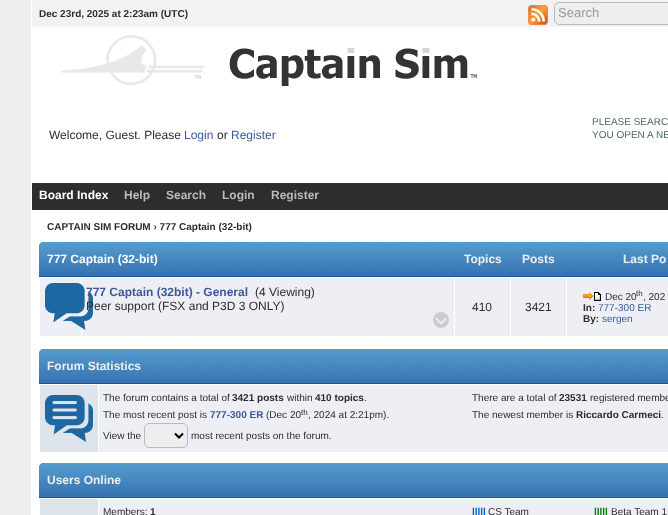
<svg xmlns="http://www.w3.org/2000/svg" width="668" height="515">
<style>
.a{font:bold 10px Liberation Sans;fill:#2d2d2d}
.b{font:13px Liberation Sans;fill:#999}
.c{font:12px Liberation Sans;fill:#2d2d2d}
.d{font:12px Liberation Sans;fill:#3b5998}
.e{font:10px Liberation Sans;fill:#4f6868}
.f{font:bold 12px Liberation Sans;fill:#fff}
.g{font:bold 12px Liberation Sans;fill:#bbb}
.h{font:bold 12px Liberation Sans;fill:#eee}
.i{font:bold 12px Liberation Sans;fill:#3b5998}
.j{font:10px Liberation Sans;fill:#2d2d2d}
.k{font:8px Liberation Sans;fill:#2d2d2d}
.l{font:10px Liberation Sans;fill:#3b5998}
.m{font:bold 10px Liberation Sans;fill:#3b5998}
.n{font:bold 10px Liberation Sans;fill:#06c}
.o{font:bold 10px Liberation Sans;fill:#008000}
</style>
<rect width="100%" height="100%" fill="#eee"/>
<path fill="#fff" d="M31 0h637v515H31z"/>
<path fill="#f2f2f2" d="M32 0h636v27H32z"/>
<image href="1.png" x="528" y="5" width="20" height="20"/>
<rect fill="#eee" stroke="#bbb" x="554.5" y="2.5" width="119" height="22" rx="4.5"/>
<image href="2.png" x="61" y="35" width="416" height="51"/>
<path fill="#2d2d2d" d="M32 183h636v27H32z"/>
<path fill="#3673b3" d="M44 242h624c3 0 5 2 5 5v30h-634v-30c0-3 2-5 5-5z"/>
<image href="3.png" x="39" y="242" width="629" height="30"/>
<path fill="#195392" d="M39 276h629v1H39z"/>
<path fill="#edeff4" d="M40 278h41v58H40z"/>
<path fill="#edeff4" d="M82 278h372v58H82z"/>
<image href="4.png" x="45" y="283" width="48" height="47"/>
<image href="5.png" x="433" y="312" width="16" height="16"/>
<path fill="#edeff4" d="M455 278h55v58H455z"/>
<path fill="#edeff4" d="M511 278h55v58H511z"/>
<path fill="#edeff4" d="M567 278h101v58H567z"/>
<image href="6.png" x="583" y="292" width="18" height="9"/>
<path fill="#3673b3" d="M44 349h624c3 0 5 2 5 5v30h-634v-30c0-3 2-5 5-5z"/>
<image href="3.png" x="39" y="349" width="629" height="30"/>
<path fill="#195392" d="M39 383h629v1H39z"/>
<path fill="#dee4ec" d="M40 385h58v67H40z"/>
<image href="7.png" x="45" y="395" width="48" height="47"/>
<path fill="#edeff4" d="M99 385h569v67H99z"/>
<rect fill="#eee" stroke="#b1bdc9" x="144.5" y="423.5" width="43" height="24" rx="4.5"/>
<path fill="none" stroke="#000" stroke-width="2" d="M175 433.5l4 4l4-4"/>
<path fill="#3673b3" d="M44 463h624c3 0 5 2 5 5v30h-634v-30c0-3 2-5 5-5z"/>
<image href="3.png" x="39" y="463" width="629" height="30"/>
<path fill="#195392" d="M39 497h629v1H39z"/>
<path fill="#dee4ec" d="M40 499h58v16H40z"/>
<path fill="#edeff4" d="M99 499h569v16H99z"/>
<text class="a" x="39" y="17">Dec 23rd, 2025 at 2:23am (UTC)</text>
<text class="b" x="558" y="17">Search</text>
<text class="c" x="49" y="139">Welcome, Guest. Please</text>
<text class="d" x="184" y="139">Login</text>
<text class="c" x="217" y="139">or</text>
<text class="d" x="231" y="139">Register</text>
<text class="e" x="592" y="125">PLEASE SEARC</text>
<text class="e" x="592" y="138">YOU OPEN A NE</text>
<text class="f" x="39" y="199">Board Index</text>
<text class="g" x="124" y="199">Help</text>
<text class="g" x="166" y="199">Search</text>
<text class="g" x="222" y="199">Login</text>
<text class="g" x="271" y="199">Register</text>
<text class="a" x="47" y="230">CAPTAIN SIM FORUM › 777 Captain (32-bit)</text>
<text class="f" x="47" y="263">777 Captain (32-bit)</text>
<text class="h" x="464" y="263">Topics</text>
<text class="h" x="522" y="263">Posts</text>
<text class="h" x="623" y="263">Last Po</text>
<text class="i" x="86" y="296">777 Captain (32bit) - General</text>
<text class="c" x="255" y="296">(4 Viewing)</text>
<text class="c" x="86" y="310">Peer support (FSX and P3D 3 ONLY)</text>
<text class="c" x="472" y="311">410</text>
<text class="c" x="525" y="311">3421</text>
<text class="j" x="605" y="300">Dec 20</text>
<text class="k" x="636" y="296">th</text>
<text class="j" x="643" y="300">, 202</text>
<text class="a" x="583" y="311">In:</text>
<text class="l" x="598" y="311">777-300 ER</text>
<text class="a" x="583" y="322">By:</text>
<text class="l" x="602" y="322">sergen</text>
<text class="h" x="47" y="370">Forum Statistics</text>
<text class="j" x="103" y="401">The forum contains a total of</text>
<text class="a" x="232" y="401">3421 posts</text>
<text class="j" x="287" y="401">within</text>
<text class="a" x="315" y="401">410 topics</text>
<text class="j" x="364" y="401">.</text>
<text class="j" x="103" y="418">The most recent post is</text>
<text class="m" x="210" y="418">777-300 ER</text>
<text class="j" x="266" y="418">(Dec 20</text>
<text class="k" x="301" y="415">th</text>
<text class="j" x="308" y="418">, 2024 at 2:21pm).</text>
<text class="j" x="103" y="439">View the</text>
<text class="j" x="191" y="439">most recent posts on the forum.</text>
<text class="j" x="472" y="401">There are a total of</text>
<text class="a" x="559" y="401">23531</text>
<text class="j" x="590" y="401">registered membe</text>
<text class="j" x="472" y="418">The newest member is</text>
<text class="a" x="576" y="418">Riccardo Carmeci</text>
<text class="j" x="661" y="418">.</text>
<text class="h" x="47" y="484">Users Online</text>
<text class="j" x="103" y="515">Members:</text>
<text class="a" x="150" y="515">1</text>
<text class="n" x="472" y="515">lllll</text>
<text class="j" x="488" y="515">CS Team</text>
<text class="o" x="594" y="515">lllll</text>
<text class="j" x="611" y="515">Beta Team 1</text>
</svg>
